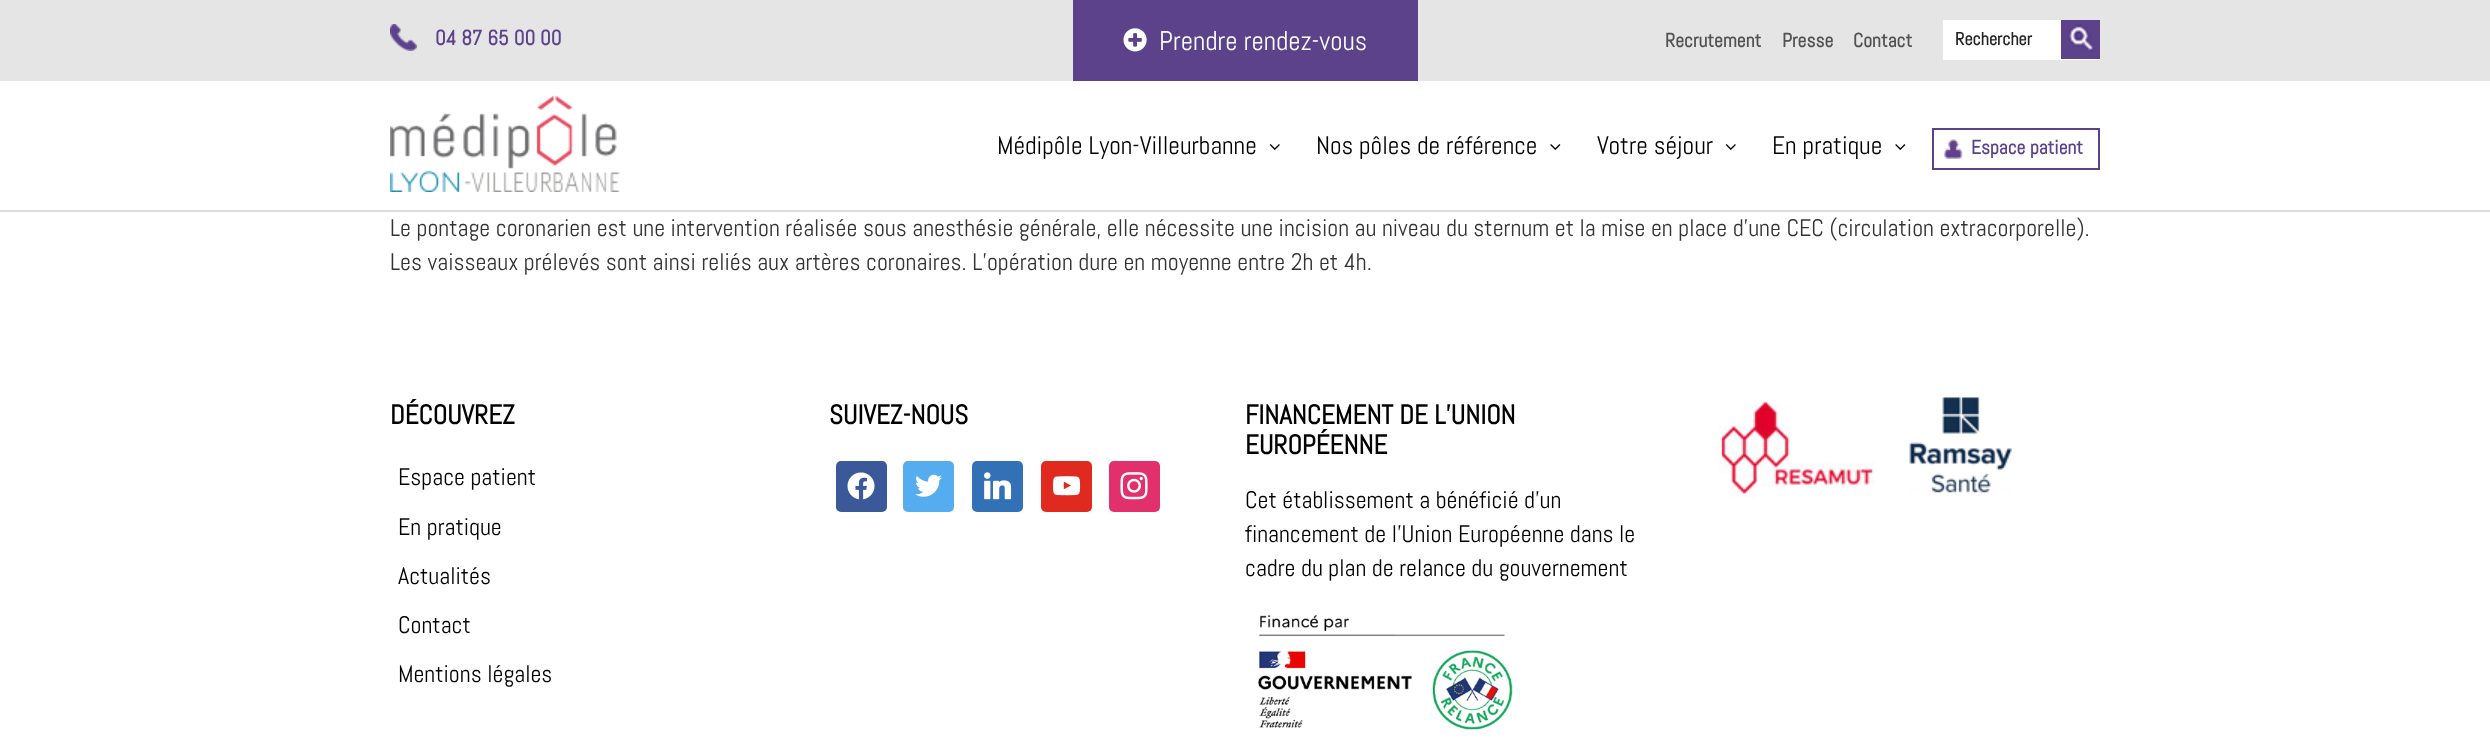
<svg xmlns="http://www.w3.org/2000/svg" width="2490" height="739">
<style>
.a{font:bold 21px Abel;fill:#5c418b}
.b{font:27px Abel;fill:#fff}
.c{font:bold 19.5px Abel;fill:#525050}
.d{font:bold 18px Abel;fill:#222}
.e{font:25.5px Abel;fill:#000}
.f{font:bold 19.5px Abel;fill:#5c418b}
.g{font:24px Abel;fill:#333}
.h{font:bold 27px Abel;fill:#000}
.i{font:24px Abel;fill:#000}
</style>
<rect width="100%" height="100%" fill="#fff"/>
<path fill="#ddd" d="M0 210h2490v2H0z"/>
<path fill="#e5e5e5" d="M0 0h2490v81H0z"/>
<image href="1.png" x="390" y="24" width="27" height="27"/>
<path fill="#5c418b" d="M1073 0h345v81H1073z"/>
<image href="2.png" x="1123" y="28" width="24" height="24"/>
<path fill="#fff" d="M1943 20h157v40H1943z"/>
<path fill="#5c418b" d="M2061 20h39v39H2061z"/>
<image href="3.png" x="2068" y="24" width="26" height="27"/>
<image href="4.png" x="390" y="95" width="230" height="97"/>
<image href="5.png" x="1269" y="144" width="11" height="6"/>
<image href="6.png" x="1550" y="144" width="11" height="6"/>
<image href="5.png" x="1725" y="144" width="11" height="6"/>
<image href="6.png" x="1895" y="144" width="11" height="6"/>
<image href="7.png" x="1944" y="139" width="19" height="20"/>
<path fill="none" stroke="#5c418b" stroke-width="2" d="M1933 129h166v40H1933z"/>
<rect fill="#3b5998" x="836" y="461" width="51" height="51" rx="5"/>
<image href="8.png" x="847" y="472" width="28" height="28"/>
<rect fill="#55acee" x="903" y="461" width="51" height="51" rx="5"/>
<image href="9.png" x="915" y="474" width="27" height="23"/>
<rect fill="#3371b7" x="972" y="461" width="51" height="51" rx="5"/>
<image href="10.png" x="984" y="472" width="28" height="28"/>
<rect fill="#e02a20" x="1041" y="461" width="51" height="51" rx="5"/>
<image href="11.png" x="1053" y="476" width="28" height="20"/>
<rect fill="#e1306c" x="1109" y="461" width="51" height="51" rx="5"/>
<image href="12.png" x="1120" y="472" width="28" height="28"/>
<image href="13.png" x="1258" y="614" width="255" height="116"/>
<image href="14.png" x="1719" y="401" width="156" height="97"/>
<image href="15.png" x="1909" y="397" width="103" height="96"/>
<text class="a" x="435" y="45">04 87 65 00 00</text>
<text class="b" x="1159" y="50">Prendre rendez-vous</text>
<text class="c" x="1665" y="47">Recrutement</text>
<text class="c" x="1782" y="47">Presse</text>
<text class="c" x="1853" y="47">Contact</text>
<text class="d" x="1955" y="45">Rechercher</text>
<text class="e" x="997" y="154">Médipôle Lyon-Villeurbanne</text>
<text class="e" x="1316" y="154">Nos pôles de référence</text>
<text class="e" x="1597" y="154">Votre séjour</text>
<text class="e" x="1772" y="154">En pratique</text>
<text class="f" x="1971" y="154">Espace patient</text>
<text class="g" x="390" y="236">Le pontage coronarien est une intervention réalisée sous anesthésie générale, elle nécessite une incision au niveau du sternum et la mise en place d’une CEC (circulation extracorporelle).</text>
<text class="g" x="390" y="270">Les vaisseaux prélevés sont ainsi reliés aux artères coronaires. L’opération dure en moyenne entre 2h et 4h.</text>
<text class="h" x="390" y="424">DÉCOUVREZ</text>
<text class="i" x="398" y="485">Espace patient</text>
<text class="i" x="398" y="535">En pratique</text>
<text class="i" x="398" y="584">Actualités</text>
<text class="i" x="398" y="633">Contact</text>
<text class="i" x="398" y="682">Mentions légales</text>
<text class="h" x="829" y="424">SUIVEZ-NOUS</text>
<text class="h" x="1245" y="424">FINANCEMENT DE L’UNION</text>
<text class="h" x="1245" y="454">EUROPÉENNE</text>
<text class="i" x="1245" y="508">Cet établissement a bénéficié d’un</text>
<text class="i" x="1245" y="542">financement de l’Union Européenne dans le</text>
<text class="i" x="1245" y="576">cadre du plan de relance du gouvernement</text>
</svg>
